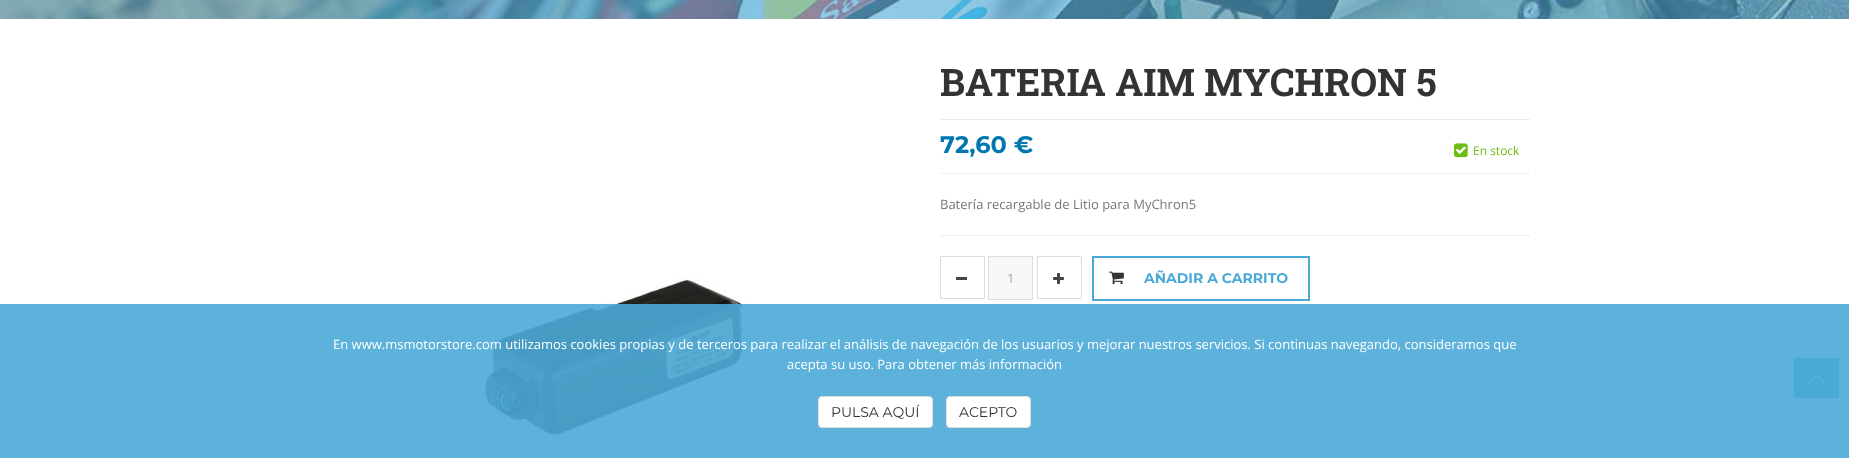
<svg xmlns="http://www.w3.org/2000/svg" width="1849" height="458">
<style>
.a{font:bold 38px Roboto Slab;fill:#333}
.b{font:bold 24px Montserrat;fill:#0077b0}
.c{font:12px Open Sans;fill:#6dbe14}
.d{font:13px Open Sans;fill:#777}
.e{font:13px Open Sans;fill:#aaa}
.f{font:bold 14px Montserrat;fill:#49a9d6}
.g{font:13px Open Sans;fill:#fff}
.h{font:14px Montserrat;fill:#333}
</style>
<rect width="100%" height="100%" fill="#fff"/>
<image href="1.png" x="0" y="0" width="1849" height="19"/>
<path fill="#ececec" d="M940 119h590v1H940z"/>
<path fill="none" stroke="#ddd" stroke-dasharray="1 1" d="M940 173.5h590"/>
<image href="2.png" x="1454" y="143" width="14" height="15"/>
<path fill="none" stroke="#ddd" stroke-dasharray="1 1" d="M940 235.5h590"/>
<path fill="none" stroke="#ddd" stroke-dasharray="1 1" d="M940 321.5h590"/>
<path fill="none" stroke="#ddd" d="M940.5 256.5h44v42H940.5z"/>
<path fill="#444" d="M956 277h11v3H956z"/>
<path fill="#f8f8f8" stroke="#ddd" d="M988.5 256.5h44v43H988.5z"/>
<path fill="none" stroke="#ddd" d="M1037.5 256.5h44v42H1037.5z"/>
<image href="3.png" x="1053" y="273" width="11" height="11"/>
<path fill="none" stroke="#49a9d6" stroke-width="2" d="M1093 257h216v43H1093z"/>
<image href="4.png" x="1109" y="271" width="15" height="14"/>
<image href="5.png" x="485" y="278" width="260" height="159"/>
<path fill="#4aa9d6" d="M1794 358h45v40H1794z"/>
<image href="6.png" x="1808" y="374" width="17" height="9"/>
<path fill="#4aaad6e6" d="M0 304h1849v154H0z"/>
<rect fill="#fff" stroke="#ddd" x="818.5" y="396.5" width="114" height="31" rx="3.5"/>
<rect fill="#fff" stroke="#ddd" x="946.5" y="396.5" width="84" height="31" rx="3.5"/>
<text class="a" x="940" y="96">BATERIA AIM MYCHRON 5</text>
<text class="b" x="940" y="153">72,60 €</text>
<text class="c" x="1473" y="155">En stock</text>
<text class="d" x="940" y="209">Batería recargable de Litio para MyChron5</text>
<text class="e" x="1007" y="283">1</text>
<text class="f" x="1144" y="283">AÑADIR A CARRITO</text>
<text class="g" x="333" y="349">En www.msmotorstore.com utilizamos cookies propias y de terceros para realizar el análisis de navegación de los usuarios y mejorar nuestros servicios. Si continuas navegando, consideramos que</text>
<text class="g" x="787" y="369">acepta su uso. Para obtener más información</text>
<text class="h" x="831" y="417">PULSA AQUÍ</text>
<text class="h" x="959" y="417">ACEPTO</text>
</svg>
